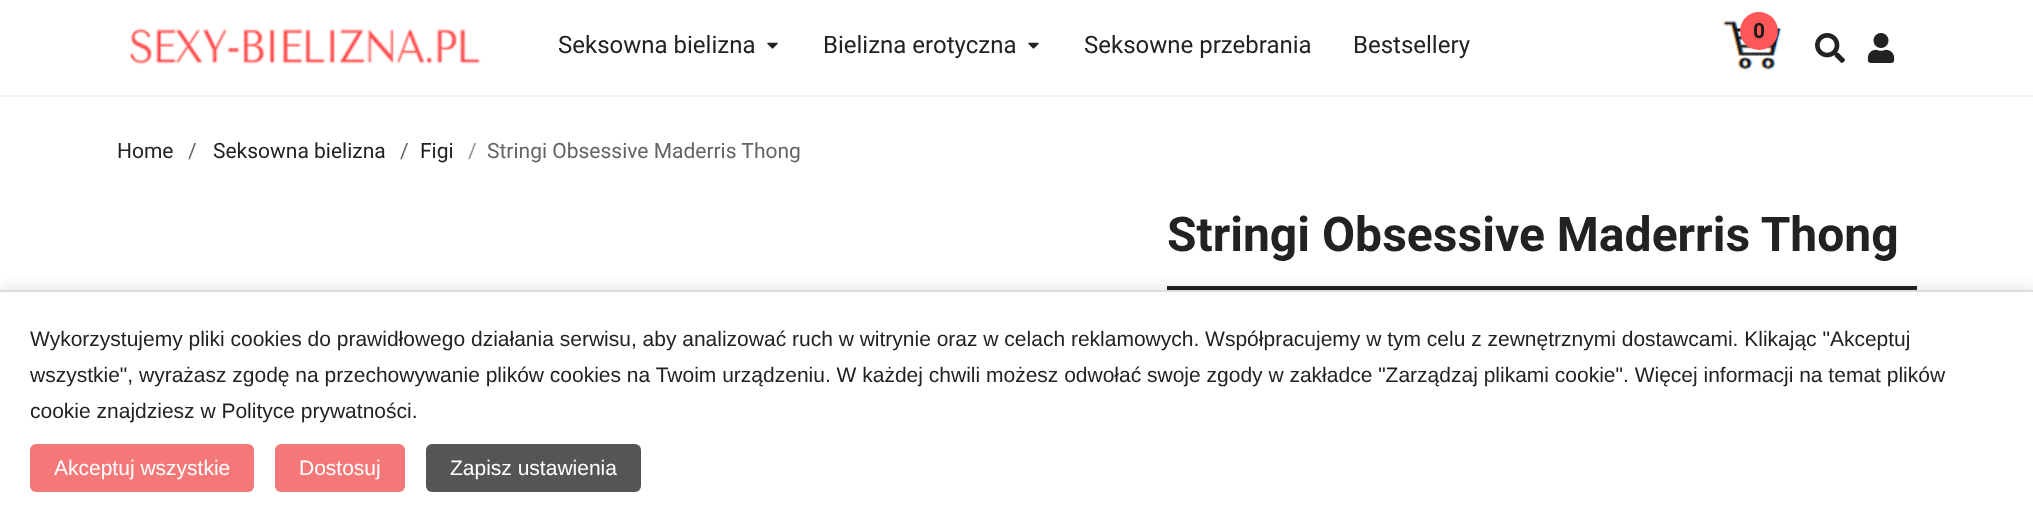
<svg xmlns="http://www.w3.org/2000/svg" width="2033" height="522">
<style>
.a{font:bold 21px Roboto;fill:#1c1c1b}
.b{font:24px Roboto;fill:#222}
.c{font:21px Roboto;fill:#222}
.d{font:21px Roboto;fill:#646464}
.e{font:21px Roboto;fill:#939393}
.f{font:bold 48px Roboto;fill:#222}
.g{font:21px Liberation Sans;fill:#222}
.h{font:21px Liberation Sans;fill:#fff}
</style>
<defs>
<clipPath id="clip1"><path d="M1167 276h750v12H1167z"/></clipPath>
</defs>
<rect width="100%" height="100%" fill="#fff"/>
<path fill="#eff0f1" d="M0 95h2033v2H0z"/>
<image href="1.png" x="1723" y="20" width="58" height="50"/>
<circle fill="#ff5757" cx="1759" cy="31" r="19"/>
<image href="2.png" x="1815" y="33" width="30" height="30"/>
<image href="3.png" x="1867" y="33" width="28" height="30"/>
<image href="4.png" x="129" y="28" width="352" height="37"/>
<image href="5.png" x="767" y="42" width="11" height="7"/>
<image href="5.png" x="1028" y="42" width="11" height="7"/>
<g clip-path="url(#clip1)">
<path fill="#222" fill-rule="evenodd" d="M1018 128h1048v308h-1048zm149 144h750c1 0 1 0 1 1v12c0 1 0 1-1 1h-750c-1 0-1 0-1-1v-12c0-1 0-1 1-1z"/>
</g>
<path fill="#222" d="M1167 288h750v2H1167z"/>
<path fill="#0000001a" filter="blur(7.5px)" d="M0 287h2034v232H0z"/>
<path fill="#fff" d="M0 292h2033v230H0z"/>
<path fill="#ddd" d="M0 290h2033v2H0z"/>
<rect fill="#f57878" x="30" y="444" width="224" height="48" rx="6"/>
<rect fill="#f57878" x="275" y="444" width="130" height="48" rx="6"/>
<rect fill="#555" x="426" y="444" width="215" height="48" rx="6"/>
<text class="a" x="1753" y="38">0</text>
<text class="b" x="558" y="53">Seksowna bielizna</text>
<text class="b" x="823" y="53">Bielizna erotyczna</text>
<text class="b" x="1084" y="53">Seksowne przebrania</text>
<text class="b" x="1353" y="53">Bestsellery</text>
<text class="c" x="117" y="158">Home</text>
<text class="d" x="188" y="158">/</text>
<text class="c" x="213" y="158">Seksowna bielizna</text>
<text class="d" x="400" y="158">/</text>
<text class="c" x="420" y="158">Figi</text>
<text class="e" x="468" y="158">/</text>
<text class="d" x="487" y="158">Stringi Obsessive Maderris Thong</text>
<text class="f" x="1167" y="251">Stringi Obsessive Maderris Thong</text>
<text class="g" x="30" y="346">Wykorzystujemy pliki cookies do prawidłowego działania serwisu, aby analizować ruch w witrynie oraz w celach reklamowych. Współpracujemy w tym celu z zewnętrznymi dostawcami. Klikając "Akceptuj</text>
<text class="g" x="30" y="382">wszystkie", wyrażasz zgodę na przechowywanie plików cookies na Twoim urządzeniu. W każdej chwili możesz odwołać swoje zgody w zakładce "Zarządzaj plikami cookie". Więcej informacji na temat plików</text>
<text class="g" x="30" y="418">cookie znajdziesz w Polityce prywatności.</text>
<text class="h" x="54" y="475">Akceptuj wszystkie</text>
<text class="h" x="299" y="475">Dostosuj</text>
<text class="h" x="450" y="475">Zapisz ustawienia</text>
</svg>
